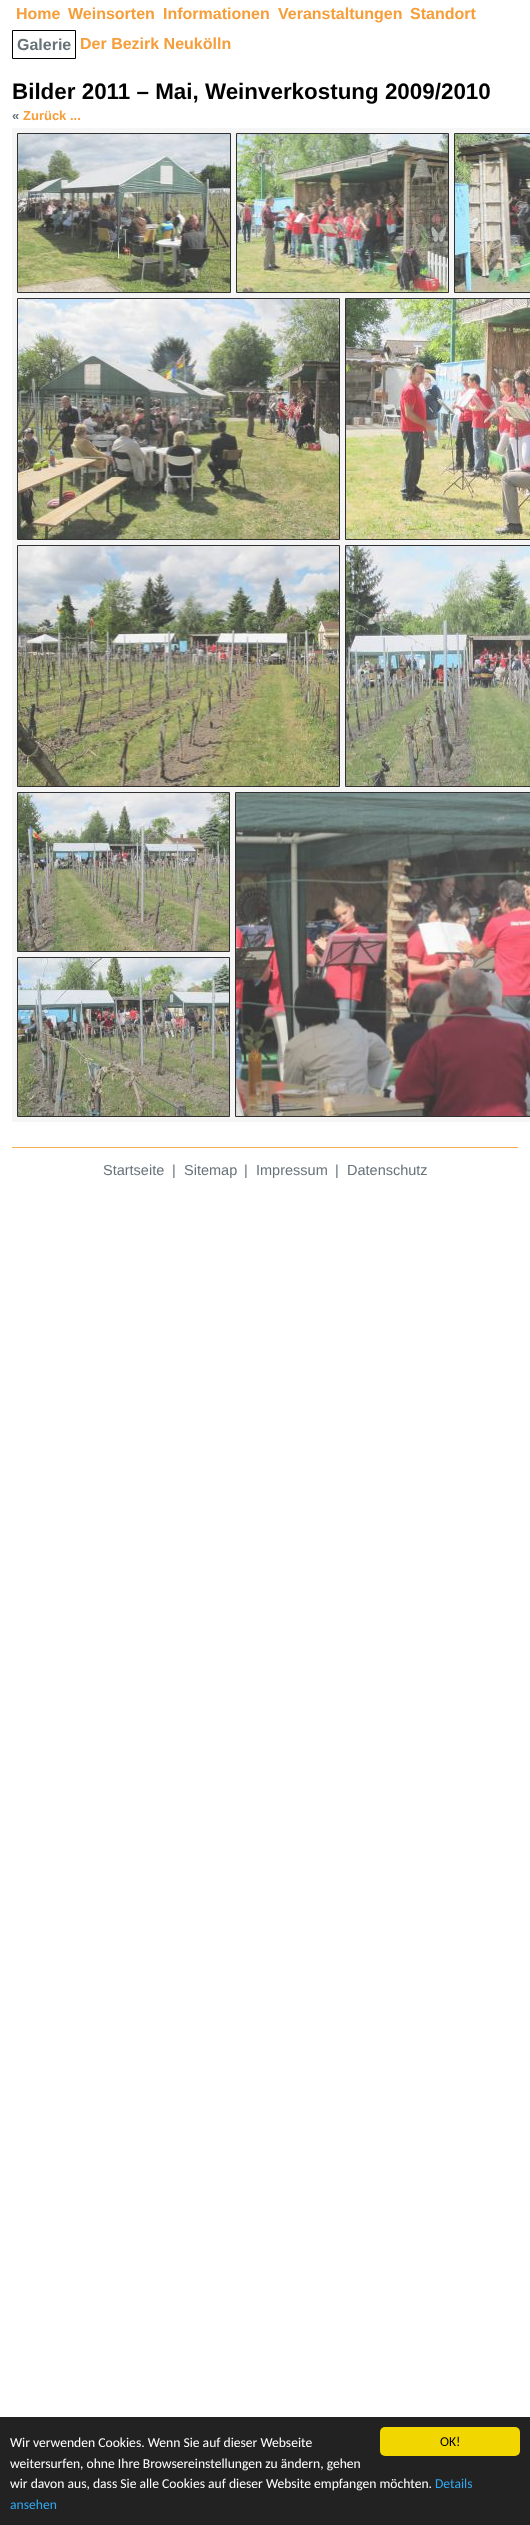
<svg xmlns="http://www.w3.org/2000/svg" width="530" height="2525">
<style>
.a{font:bold 16px Liberation Sans;fill:#f69e3a}
.b{font:bold 16px Liberation Sans;fill:#677279}
.c{font:bold 22.4px Liberation Sans;fill:#000}
.d{font:bold 13px Liberation Sans;fill:#677279}
.e{font:bold 13px Liberation Sans;fill:#f69e3a}
.f{font:14.5px Liberation Sans;fill:#677279}
.g{font:13.6px Carlito;fill:#000}
.h{font:13.6px Carlito;fill:#fff}
.i{font:13.6px Carlito;fill:#31a8f0}
</style>
<rect width="100%" height="100%" fill="#fff"/>
<path fill="none" stroke="#000" d="M12.5 30.5h63v28H12.5z"/>
<path fill="#f6f6f6" d="M12 128h518v994H12z"/>
<path fill="none" stroke="#313131" d="M17.5 133.5h213v159H17.5z"/>
<image href="1.png" x="18" y="134" width="212" height="158"/>
<path fill="none" stroke="#313131" d="M236.5 133.5h212v159H236.5z"/>
<image href="2.png" x="237" y="134" width="211" height="158"/>
<path fill="none" stroke="#313131" d="M454.5 133.5h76v159H454.5z"/>
<image href="3.png" x="455" y="134" width="75" height="158"/>
<path fill="none" stroke="#313131" d="M17.5 298.5h322v241H17.5z"/>
<image href="4.png" x="18" y="299" width="321" height="240"/>
<path fill="none" stroke="#313131" d="M345.5 298.5h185v241H345.5z"/>
<image href="5.png" x="346" y="299" width="184" height="240"/>
<path fill="none" stroke="#313131" d="M17.5 545.5h322v241H17.5z"/>
<image href="6.png" x="18" y="546" width="321" height="240"/>
<path fill="none" stroke="#313131" d="M345.5 545.5h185v241H345.5z"/>
<image href="7.png" x="346" y="546" width="184" height="240"/>
<path fill="none" stroke="#313131" d="M17.5 792.5h212v159H17.5z"/>
<image href="8.png" x="18" y="793" width="211" height="158"/>
<path fill="none" stroke="#313131" d="M235.5 792.5h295v324H235.5z"/>
<image href="9.png" x="236" y="793" width="294" height="323"/>
<path fill="none" stroke="#313131" d="M17.5 957.5h212v159H17.5z"/>
<image href="10.png" x="18" y="958" width="211" height="158"/>
<path fill="#f7ae59" d="M12 1147h506v1H12z"/>
<path fill="#222" d="M0 2417h530v108H0z"/>
<rect fill="#f1d600" x="380" y="2427" width="140" height="29" rx="5"/>
<text class="a" x="16" y="19">Home</text>
<text class="a" x="68" y="19">Weinsorten</text>
<text class="a" x="163" y="19">Informationen</text>
<text class="a" x="278" y="19">Veranstaltungen</text>
<text class="a" x="410" y="19">Standort</text>
<text class="b" x="17" y="50">Galerie</text>
<text class="a" x="80" y="49">Der Bezirk Neukölln</text>
<text class="c" x="12" y="99">Bilder 2011 – Mai, Weinverkostung 2009/2010</text>
<text class="d" x="12" y="120">«</text>
<text class="e" x="23" y="120">Zurück ...</text>
<text class="f" x="103" y="1175">Startseite</text>
<text class="f" x="172" y="1175">|</text>
<text class="f" x="184" y="1175">Sitemap</text>
<text class="f" x="244" y="1175">|</text>
<text class="f" x="256" y="1175">Impressum</text>
<text class="f" x="335" y="1175">|</text>
<text class="f" x="347" y="1175">Datenschutz</text>
<text class="g" x="440" y="2446">OK!</text>
<text class="h" x="10" y="2447">Wir verwenden Cookies. Wenn Sie auf dieser Webseite</text>
<text class="h" x="10" y="2468">weitersurfen, ohne Ihre Browsereinstellungen zu ändern, gehen</text>
<text class="h" x="10" y="2488">wir davon aus, dass Sie alle Cookies auf dieser Website empfangen möchten.</text>
<text class="i" x="435" y="2488">Details</text>
<text class="i" x="10" y="2509">ansehen</text>
</svg>
